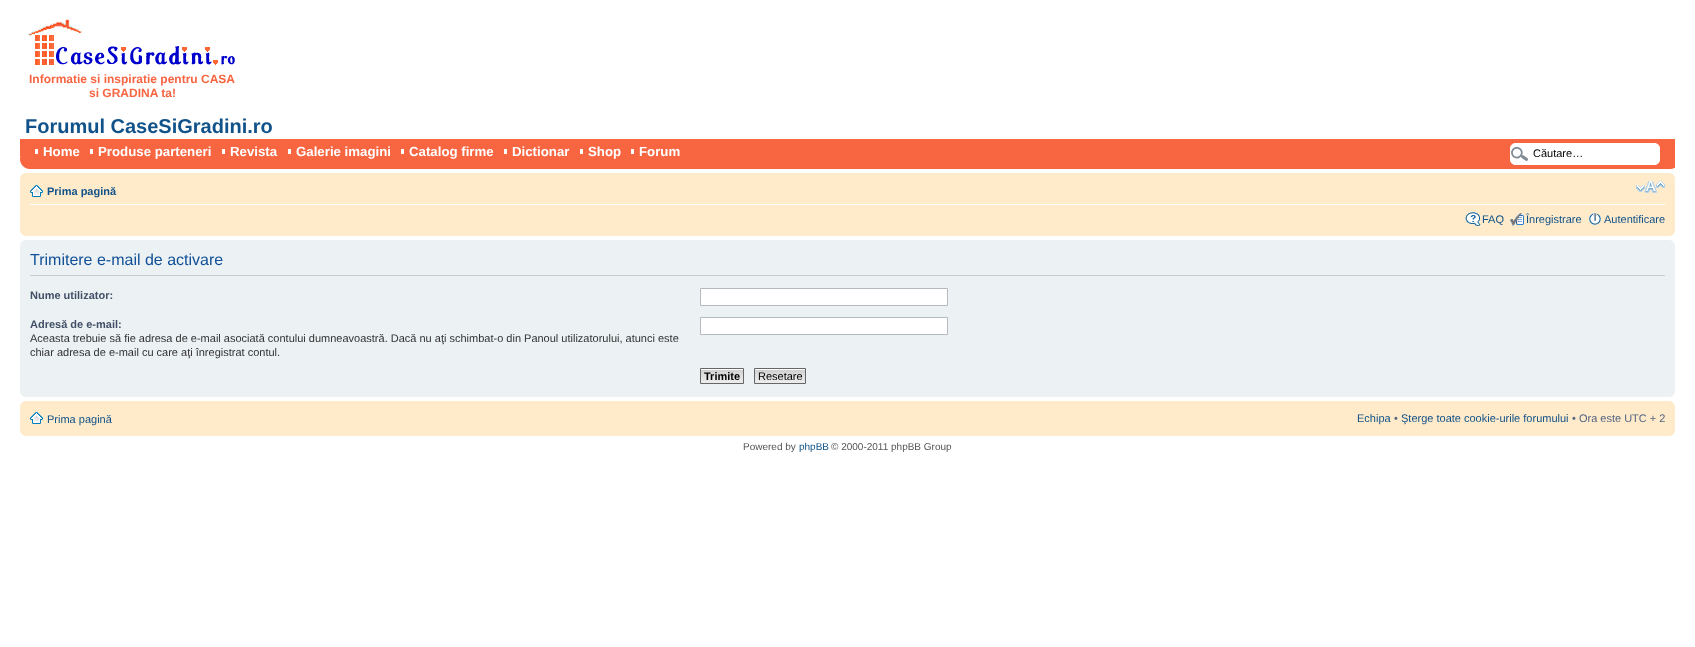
<svg xmlns="http://www.w3.org/2000/svg" width="1695" height="647">
<style>
.a{font:bold 12px Liberation Sans;fill:#f76541}
.b{font:bold 20px Liberation Sans;fill:#105289}
.c{font:bold 13.25px Liberation Sans;fill:#fff}
.d{font:11px Liberation Sans;fill:#000}
.e{font:bold 11px Liberation Sans;fill:#105289}
.f{font:11px Liberation Sans;fill:#105289}
.g{font:16px Liberation Sans;fill:#115098}
.h{font:bold 11px Liberation Sans;fill:#425067}
.i{font:11px Liberation Sans;fill:#333}
.j{font:bold 11px Liberation Sans;fill:#000}
.k{font:11px Liberation Sans;fill:#536482}
.l{font:10px Liberation Sans;fill:#555}
.m{font:10px Liberation Sans;fill:#105289}
</style>
<rect width="100%" height="100%" fill="#fff"/>
<image href="1.png" x="28" y="19" width="207" height="46"/>
<path fill="#f76541" d="M20 139h1655v30H20z"/>
<path fill="#fff" d="M35 149h3v5H35z"/>
<path fill="#fff" d="M90 149h3v5H90z"/>
<path fill="#fff" d="M222 149h3v5H222z"/>
<path fill="#fff" d="M288 149h3v5H288z"/>
<path fill="#fff" d="M401 149h3v5H401z"/>
<path fill="#fff" d="M504 149h3v5H504z"/>
<path fill="#fff" d="M580 149h3v5H580z"/>
<path fill="#fff" d="M631 149h3v5H631z"/>
<image href="2.png" x="1510" y="143" width="150" height="22"/>
<image href="3.png" x="20" y="156" width="9" height="13"/>
<image href="4.png" x="1671" y="167" width="4" height="2"/>
<path fill="#ffeaca" d="M20 173h1655v63H20z"/>
<image href="5.png" x="20" y="173" width="5" height="5"/>
<image href="6.png" x="1670" y="173" width="5" height="5"/>
<path fill="#fff" d="M30 204h1635v1H30z"/>
<image href="7.png" x="30" y="185" width="13" height="12"/>
<image href="8.png" x="1636" y="181" width="29" height="12"/>
<image href="9.png" x="1465" y="212" width="16" height="14"/>
<image href="10.png" x="1510" y="213" width="14" height="13"/>
<image href="11.png" x="1589" y="213" width="12" height="12"/>
<image href="12.png" x="20" y="231" width="5" height="5"/>
<image href="13.png" x="1670" y="231" width="5" height="5"/>
<path fill="#ecf1f3" d="M20 240h1655v157H20z"/>
<image href="14.png" x="20" y="240" width="5" height="5"/>
<image href="15.png" x="1670" y="240" width="5" height="5"/>
<path fill="#ccc" d="M30 275h1635v1H30z"/>
<path fill="#fff" stroke="#b4bac0" d="M700.5 288.5h247v17H700.5z"/>
<path fill="#fff" stroke="#b4bac0" d="M700.5 317.5h247v17H700.5z"/>
<image href="16.png" x="701" y="369" width="42" height="14"/>
<path fill="none" stroke="#666" d="M700.5 368.5h43v15H700.5z"/>
<image href="17.png" x="755" y="369" width="50" height="14"/>
<path fill="none" stroke="#666" d="M754.5 368.5h51v15H754.5z"/>
<image href="18.png" x="20" y="392" width="5" height="5"/>
<image href="19.png" x="1670" y="392" width="5" height="5"/>
<path fill="#ffeaca" d="M20 401h1655v35H20z"/>
<image href="5.png" x="20" y="401" width="5" height="5"/>
<image href="6.png" x="1670" y="401" width="5" height="5"/>
<image href="7.png" x="30" y="412" width="13" height="12"/>
<image href="12.png" x="20" y="431" width="5" height="5"/>
<image href="13.png" x="1670" y="431" width="5" height="5"/>
<text class="a" x="29" y="83">Informatie si inspiratie pentru CASA</text>
<text class="a" x="89" y="97">si GRADINA ta!</text>
<text class="b" x="25" y="133">Forumul CaseSiGradini.ro</text>
<text class="c" x="43" y="156">Home</text>
<text class="c" x="98" y="156">Produse parteneri</text>
<text class="c" x="230" y="156">Revista</text>
<text class="c" x="296" y="156">Galerie imagini</text>
<text class="c" x="409" y="156">Catalog firme</text>
<text class="c" x="512" y="156">Dictionar</text>
<text class="c" x="588" y="156">Shop</text>
<text class="c" x="639" y="156">Forum</text>
<text class="d" x="1533" y="157">Căutare…</text>
<text class="e" x="47" y="195">Prima pagină</text>
<text class="f" x="1482" y="223">FAQ</text>
<text class="f" x="1526" y="223">Înregistrare</text>
<text class="f" x="1604" y="223">Autentificare</text>
<text class="g" x="30" y="265">Trimitere e-mail de activare</text>
<text class="h" x="30" y="299">Nume utilizator:</text>
<text class="h" x="30" y="328">Adresă de e-mail:</text>
<text class="i" x="30" y="342">Aceasta trebuie să fie adresa de e-mail asociată contului dumneavoastră. Dacă nu aţi schimbat-o din Panoul utilizatorului, atunci este</text>
<text class="i" x="30" y="356">chiar adresa de e-mail cu care aţi înregistrat contul.</text>
<text class="j" x="704" y="380">Trimite</text>
<text class="d" x="758" y="380">Resetare</text>
<text class="f" x="47" y="423">Prima pagină</text>
<text class="f" x="1357" y="422">Echipa</text>
<text class="k" x="1394" y="422">•</text>
<text class="f" x="1401" y="422">Şterge toate cookie-urile forumului</text>
<text class="k" x="1572" y="422">• Ora este UTC + 2</text>
<text class="l" x="743" y="450">Powered by</text>
<text class="m" x="799" y="450">phpBB</text>
<text class="l" x="831" y="450">© 2000-2011 phpBB Group</text>
</svg>
